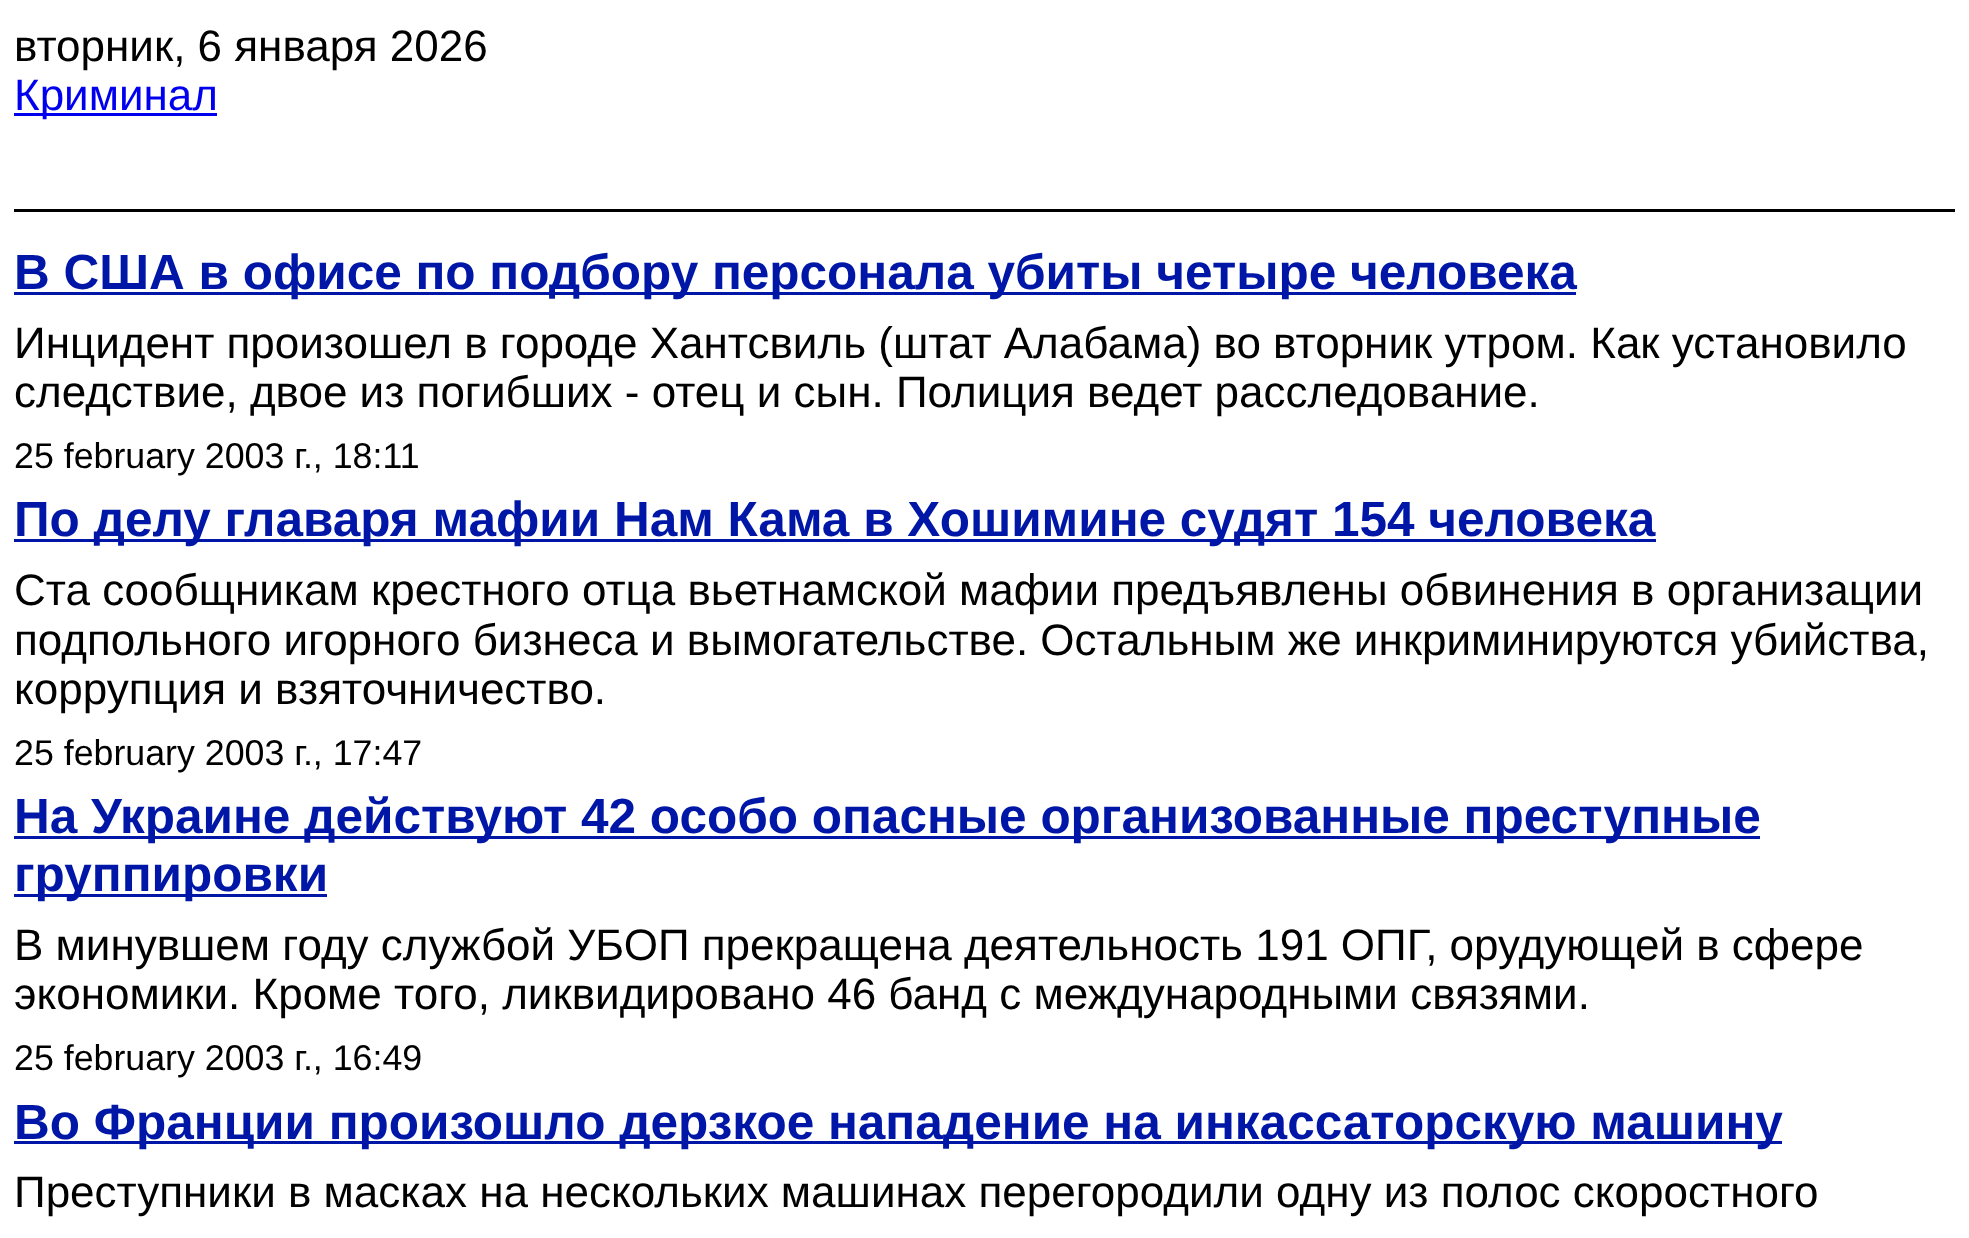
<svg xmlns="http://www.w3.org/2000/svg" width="1969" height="1238">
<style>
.a{font:44px Liberation Sans;fill:#000}
.b{font:44px Liberation Sans;fill:#00e}
.c{font:bold 49.5px Liberation Sans;fill:#0016a6}
.d{font:35.75px Liberation Sans;fill:#000}
</style>
<rect width="100%" height="100%" fill="#fff"/>
<path fill="#000" d="M14 209h1941v3H14z"/>
<path fill="#00e" d="M14 113h203v3H14z"/>
<path fill="#0016a6" d="M14 292h1562v3H14z"/>
<path fill="#0016a6" d="M14 539h1642v3H14z"/>
<path fill="#0016a6" d="M14 836h1746v3H14z"/>
<path fill="#0016a6" d="M14 894h313v3H14z"/>
<path fill="#0016a6" d="M14 1141h1768v3H14z"/>
<text class="a" x="14" y="61">вторник, 6 января 2026</text>
<text class="b" x="14" y="110">Криминал</text>
<text class="c" x="14" y="289">В США в офисе по подбору персонала убиты четыре человека</text>
<text class="a" x="14" y="358">Инцидент произошел в городе Хантсвиль (штат Алабама) во вторник утром. Как установило</text>
<text class="a" x="14" y="407">следствие, двое из погибших - отец и сын. Полиция ведет расследование.</text>
<text class="d" x="14" y="468">25 february 2003 г., 18:11</text>
<text class="c" x="14" y="536">По делу главаря мафии Нам Кама в Хошимине судят 154 человека</text>
<text class="a" x="14" y="605">Ста сообщникам крестного отца вьетнамской мафии предъявлены обвинения в организации</text>
<text class="a" x="14" y="655">подпольного игорного бизнеса и вымогательстве. Остальным же инкриминируются убийства,</text>
<text class="a" x="14" y="704">коррупция и взяточничество.</text>
<text class="d" x="14" y="765">25 february 2003 г., 17:47</text>
<text class="c" x="14" y="833">На Украине действуют 42 особо опасные организованные преступные</text>
<text class="c" x="14" y="891">группировки</text>
<text class="a" x="14" y="960">В минувшем году службой УБОП прекращена деятельность 191 ОПГ, орудующей в сфере</text>
<text class="a" x="14" y="1009">экономики. Кроме того, ликвидировано 46 банд с международными связями.</text>
<text class="d" x="14" y="1070">25 february 2003 г., 16:49</text>
<text class="c" x="14" y="1139">Во Франции произошло дерзкое нападение на инкассаторскую машину</text>
<text class="a" x="14" y="1207">Преступники в масках на нескольких машинах перегородили одну из полос скоростного</text>
</svg>
